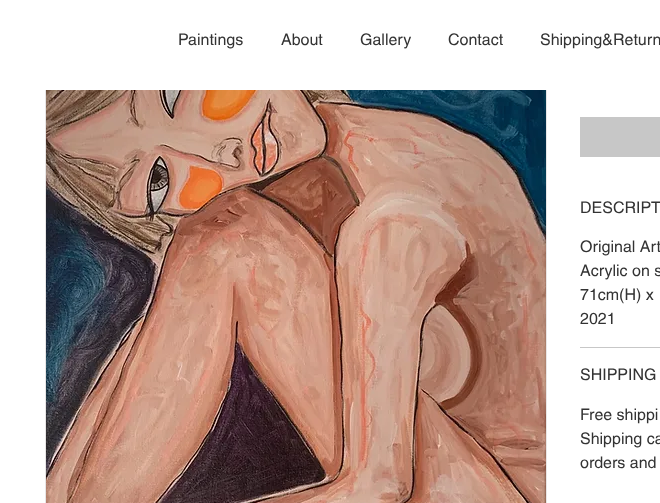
<svg xmlns="http://www.w3.org/2000/svg" width="660" height="503">
<style>
.a{font:16px helvetica;fill:#333}
</style>
<rect width="100%" height="100%" fill="#fff"/>
<path fill="none" stroke="#e8e6e6" d="M45.5 1.5h501v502H45.5z"/>
<path fill="#fff" d="M45 1h502v89H45z"/>
<image href="1.png" x="46" y="90" width="500" height="413"/>
<path fill="#c7c7c7" d="M580 117h80v40H580z"/>
<path fill="#c7c7c7" d="M580 347h80v1H580z"/>
<text class="a" x="178" y="45">Paintings</text>
<text class="a" x="281" y="45">About</text>
<text class="a" x="360" y="45">Gallery</text>
<text class="a" x="448" y="45">Contact</text>
<text class="a" x="540" y="45">Shipping&amp;Return</text>
<text class="a" x="580" y="213">DESCRIPT</text>
<text class="a" x="580" y="252">Original Art</text>
<text class="a" x="580" y="276">Acrylic on s</text>
<text class="a" x="580" y="300">71cm(H) x</text>
<text class="a" x="580" y="324">2021</text>
<text class="a" x="580" y="380">SHIPPING</text>
<text class="a" x="580" y="420">Free shippi</text>
<text class="a" x="580" y="444">Shipping ca</text>
<text class="a" x="580" y="468">orders and</text>
</svg>
